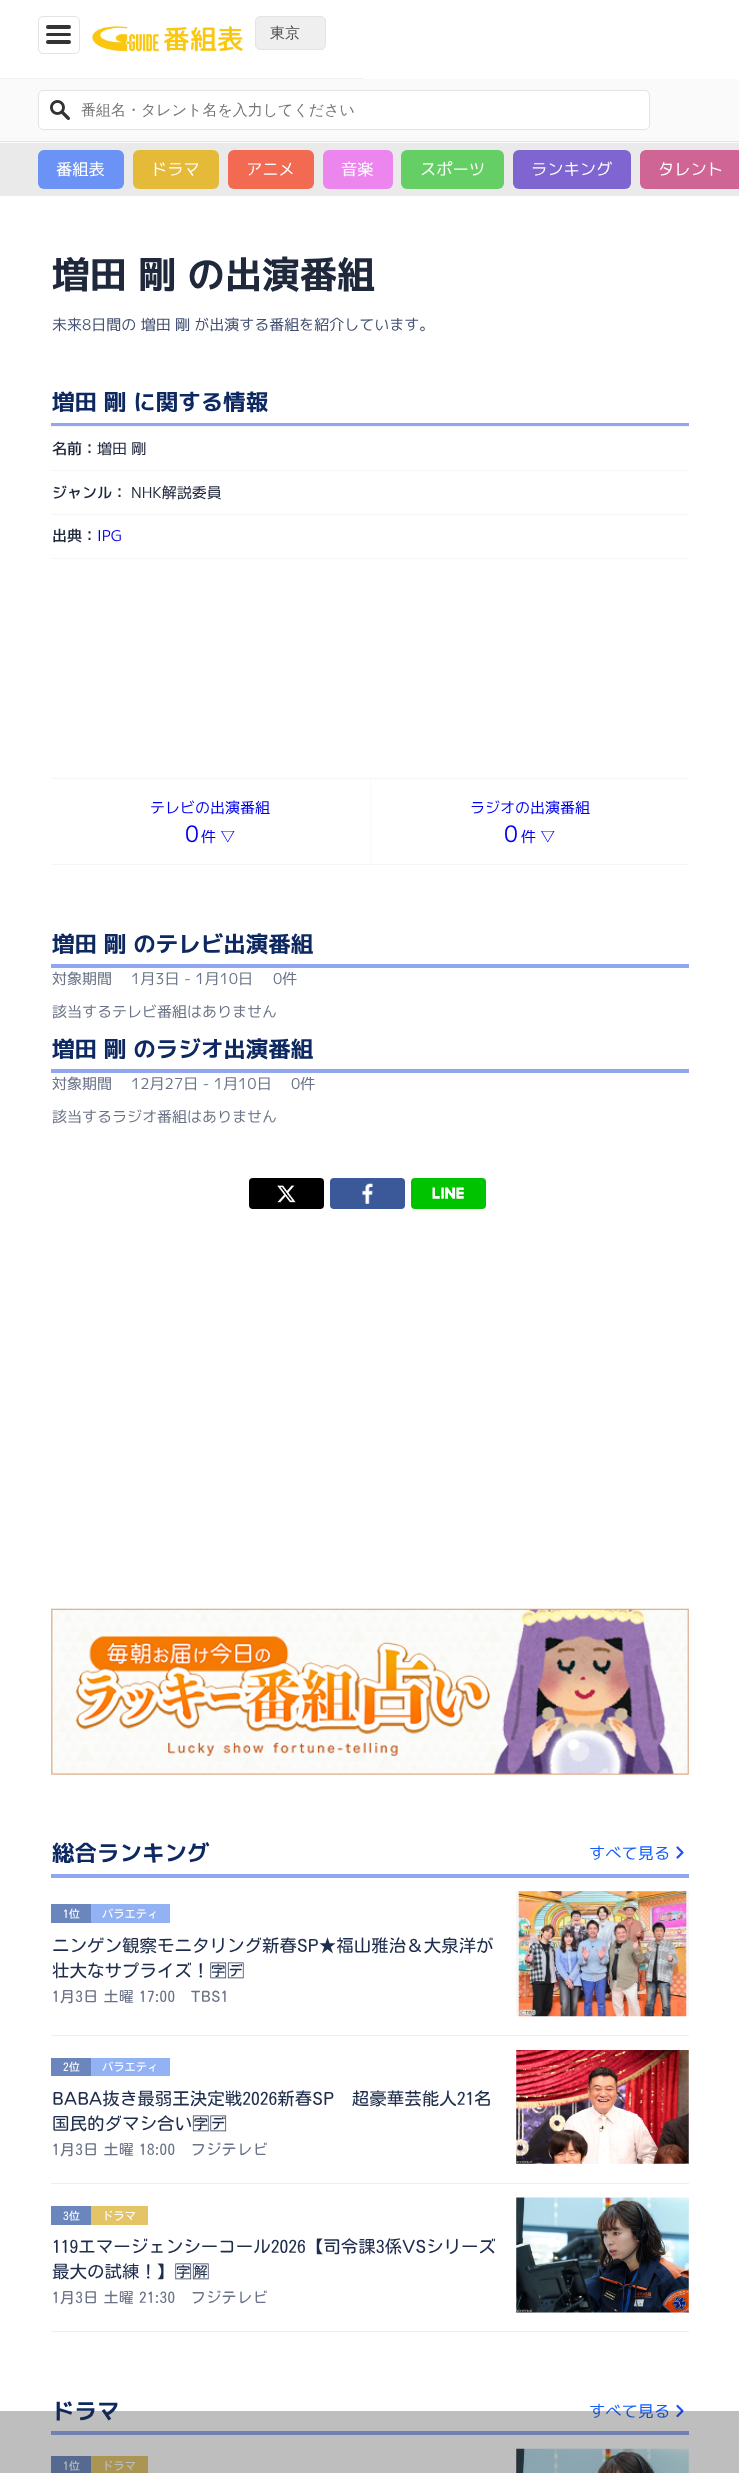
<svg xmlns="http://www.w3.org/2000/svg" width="739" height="2473">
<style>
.a{font:500 15px WenQuanYi Zen Hei;fill:#4c4c4c}
.b{font:500 15px WenQuanYi Zen Hei;fill:#757575}
.c{font:16.25px 'M PLUS 1p';fill:#fff}
.d{font:bold 37.5px 'M PLUS 1p';fill:#20283c}
.e{font:15px 'M PLUS 1p';fill:#435071}
.f{font:bold 22.5px 'M PLUS 1p';fill:#0e2961}
.g{font:500 15px 'M PLUS 1p';fill:#20283c}
.h{font:15px 'M PLUS 1p';fill:#20283c}
.i{font:15px 'M PLUS 1p';fill:#00e}
.j{font:22.5px 'M PLUS 1p';fill:#00e}
.k{font:15px 'M PLUS 1p';fill:#6a7387}
.l{font:16.25px 'M PLUS 1p';fill:#125dff}
.m{font:11.25px 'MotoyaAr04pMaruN';fill:#fff}
.n{font:17.5px 'MotoyaAr04pMaruN';fill:#1f2d4d}
.o{font:15px 'MotoyaAr04pMaruN';letter-spacing:0.4px;fill:#6a7387}
</style>
<rect width="100%" height="100%" fill="#fff"/>
<path fill="#f1f1f1" d="M0 78h364v1H0z"/>
<rect fill="none" stroke="#e3e3e3" x="38.5" y="16.5" width="41" height="37" rx="4.5"/>
<rect fill="#333" x="46" y="25" width="25" height="4" rx="2"/>
<rect fill="#333" x="46" y="33" width="25" height="3" rx="1.5"/>
<rect fill="#333" x="46" y="40" width="25" height="4" rx="2"/>
<image href="1.png" x="92" y="26" width="151" height="26"/>
<rect fill="#efefef" stroke="#e3e3e3" x="255.5" y="16.5" width="70" height="33" rx="4.5"/>
<path fill="#fafafa" d="M0 79h739v64H0z"/>
<path fill="#e5e5e5" d="M0 141h739v1H0z"/>
<rect fill="#fff" stroke="#e3e3e3" x="38.5" y="90.5" width="611" height="39" rx="4.5"/>
<image href="2.png" x="50" y="100" width="20" height="20"/>
<path fill="#eaeaea" d="M0 143h739v53H0z"/>
<rect fill="#6b92f5" x="38" y="150" width="86" height="39" rx="6"/>
<rect fill="#e4ba38" x="133" y="150" width="86" height="39" rx="6"/>
<rect fill="#f36a53" x="228" y="150" width="86" height="39" rx="6"/>
<rect fill="#ec85ee" x="323" y="150" width="70" height="39" rx="6"/>
<rect fill="#65cf66" x="401" y="150" width="103" height="39" rx="6"/>
<rect fill="#7e65cf" x="513" y="150" width="118" height="39" rx="6"/>
<rect fill="#cf6595" x="640" y="150" width="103" height="39" rx="6"/>
<path fill="#90a6f1" d="M51 423h638v3H51z"/>
<path fill="#f4f6f9" d="M51 426h638v1H51z"/>
<path fill="#f4f6f9" d="M51 470h638v1H51z"/>
<path fill="#f4f6f9" d="M51 514h638v1H51z"/>
<path fill="#f4f6f9" d="M51 558h638v1H51z"/>
<path fill="#f4f6f9" d="M51 778h638v1H51z"/>
<path fill="#f4f6f9" d="M51 864h638v1H51z"/>
<path fill="none" stroke="#f4f6f9" stroke-width="1.2" stroke-dasharray="1.25 1.25" d="M370.5 779v85"/>
<path fill="#90a6f1" d="M51 964h638v4H51z"/>
<path fill="#90a6f1" d="M51 1069h638v4H51z"/>
<rect fill="#000" x="249" y="1178" width="75" height="31" rx="4"/>
<image href="3.png" x="277" y="1185" width="19" height="18"/>
<rect fill="#3b5999" x="330" y="1178" width="75" height="31" rx="4"/>
<image href="4.png" x="362" y="1183" width="11" height="21"/>
<rect fill="#00c300" x="411" y="1178" width="75" height="31" rx="4"/>
<image href="5.png" x="432" y="1187" width="32" height="12"/>
<image href="6.png" x="51" y="1608" width="638" height="167"/>
<path fill="#90a6f1" d="M51 1874h638v4H51z"/>
<path fill="none" stroke="#1950fb" stroke-width="2.2" stroke-linecap="round" stroke-linejoin="round" d="M677.5 1847.5l5 5l-5 5"/>
<path fill="#ebeef3" d="M51 2035h638v1H51z"/>
<path fill="#6a86bd" d="M51 1904h40v19H51z"/>
<path fill="#93b2f3" d="M91 1904h79v19H91z"/>
<path fill="#f6f6f6" d="M516 1891h173v125H516z"/>
<image href="7.png" x="518" y="1891" width="169" height="126"/>
<path fill="#ebeef3" d="M51 2183h638v1H51z"/>
<path fill="#6a86bd" d="M51 2058h40v18H51z"/>
<path fill="#93b2f3" d="M91 2058h79v18H91z"/>
<path fill="#f6f6f6" d="M516 2050h173v114H516z"/>
<image href="8.png" x="516" y="2050" width="173" height="114"/>
<path fill="#ebeef3" d="M51 2331h638v1H51z"/>
<path fill="#6a86bd" d="M51 2206h40v19H51z"/>
<path fill="#e3c567" d="M91 2206h57v19H91z"/>
<path fill="#f6f6f6" d="M516 2198h173v115H516z"/>
<image href="9.png" x="516" y="2197" width="173" height="116"/>
<path fill="#90a6f1" d="M51 2431h638v4H51z"/>
<path fill="none" stroke="#1950fb" stroke-width="2.2" stroke-linecap="round" stroke-linejoin="round" d="M677.5 2406l5 5l-5 5"/>
<path fill="#6a86bd" d="M51 2456h40v17H51z"/>
<path fill="#e3c567" d="M91 2456h57v17H91z"/>
<image href="10.png" x="516" y="2448" width="173" height="25"/>
<text class="a" x="270" y="38">東京</text>
<text class="b" x="81" y="115">番組名・タレント名を入力してください</text>
<text class="c" x="56" y="175">番組表</text>
<text class="c" x="151" y="175">ドラマ</text>
<text class="c" x="246" y="175">アニメ</text>
<text class="c" x="341" y="175">音楽</text>
<text class="c" x="420" y="175">スポーツ</text>
<text class="c" x="531" y="175">ランキング</text>
<text class="c" x="658" y="175">タレント</text>
<text class="d" x="52" y="288">増田 剛 の出演番組</text>
<text class="e" x="52" y="330">未来8日間の 増田 剛 が出演する番組を紹介しています。</text>
<text class="f" x="52" y="410">増田 剛 に関する情報</text>
<text class="g" x="52" y="454">名前：</text>
<text class="h" x="97" y="454">増田 剛</text>
<text class="g" x="52" y="498">ジャンル：</text>
<text class="h" x="131" y="498">NHK解説委員</text>
<text class="g" x="52" y="541">出典：</text>
<text class="i" x="97" y="541">IPG</text>
<text class="i" x="150" y="813">テレビの出演番組</text>
<text class="j" x="185" y="842">0</text>
<text class="i" x="201" y="842">件 ▽</text>
<text class="i" x="470" y="813">ラジオの出演番組</text>
<text class="j" x="504" y="842">0</text>
<text class="i" x="521" y="842">件 ▽</text>
<text class="f" x="52" y="952">増田 剛 のテレビ出演番組</text>
<text class="k" x="52" y="984">対象期間</text>
<text class="k" x="131" y="984">1月3日 - 1月10日</text>
<text class="k" x="273" y="984">0件</text>
<text class="k" x="52" y="1017">該当するテレビ番組はありません</text>
<text class="f" x="52" y="1057">増田 剛 のラジオ出演番組</text>
<text class="k" x="52" y="1089">対象期間</text>
<text class="k" x="131" y="1089">12月27日 - 1月10日</text>
<text class="k" x="291" y="1089">0件</text>
<text class="k" x="52" y="1122">該当するラジオ番組はありません</text>
<text class="f" x="52" y="1861">総合ランキング</text>
<text class="l" x="589" y="1859">すべて見る</text>
<text class="m" x="63" y="1918">1位</text>
<text class="m" x="102" y="1918">バラエティ</text>
<text class="n" x="52" y="1952">ニンゲン観察モニタリング新春SP★福山雅治＆大泉洋が</text>
<text class="n" x="52" y="1977">壮大なサプライズ！🈑🈓</text>
<text class="o" x="52" y="2002">1月3日 土曜 17:00　TBS1</text>
<text class="m" x="63" y="2071">2位</text>
<text class="m" x="102" y="2071">バラエティ</text>
<text class="n" x="52" y="2105">BABA抜き最弱王決定戦2026新春SP　超豪華芸能人21名</text>
<text class="n" x="52" y="2130">国民的ダマシ合い🈑🈓</text>
<text class="o" x="52" y="2155">1月3日 土曜 18:00　フジテレビ</text>
<text class="m" x="63" y="2220">3位</text>
<text class="m" x="102" y="2220">ドラマ</text>
<text class="n" x="52" y="2253">119エマージェンシーコール2026【司令課3係VSシリーズ</text>
<text class="n" x="52" y="2278">最大の試練！】🈑🈖</text>
<text class="o" x="52" y="2303">1月3日 土曜 21:30　フジテレビ</text>
<text class="f" x="52" y="2419">ドラマ</text>
<text class="l" x="589" y="2417">すべて見る</text>
<text class="m" x="63" y="2470">1位</text>
<text class="m" x="102" y="2470">ドラマ</text>
<path fill="#2828284d" d="M0 2411h739v62H0z"/>
</svg>
